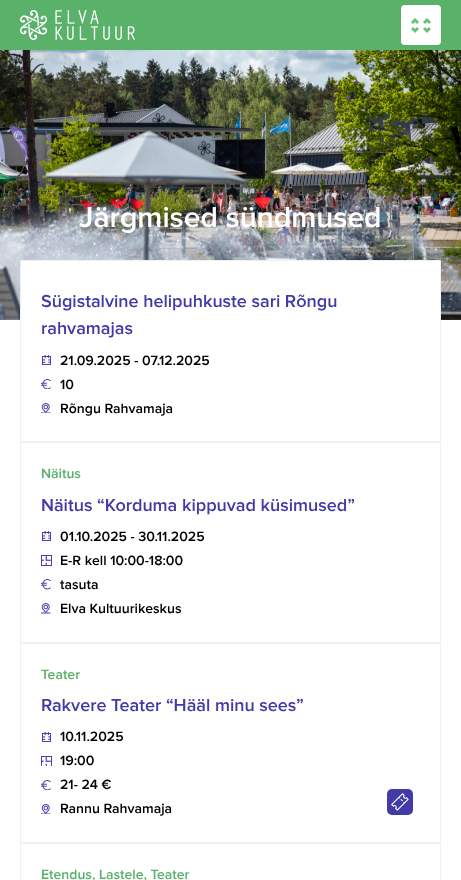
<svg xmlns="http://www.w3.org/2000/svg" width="461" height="880">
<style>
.a{font:600 30px Proxima Nova;fill:#fff}
.b{font:600 18px Proxima Nova;fill:#423aa7}
.c{font:600 14px Proxima Nova;fill:#000}
.d{font:600 14px Proxima Nova;fill:#59b16a}
</style>
<rect width="100%" height="100%" fill="#fff"/>
<path fill="#59b16a" d="M0 0h461v50H0z"/>
<image href="1.png" x="20" y="10" width="115" height="30"/>
<rect fill="#fff" x="401" y="5" width="40" height="40" rx="4"/>
<image href="2.png" x="411" y="18" width="20" height="15"/>
<image href="3.png" x="0" y="50" width="461" height="270"/>
<path fill="#fff" d="M21 261h419v59H21z"/>
<path fill="none" stroke="#eff0f1" d="M20.5 260.5h420v181H20.5z"/>
<image href="4.png" x="42" y="355" width="9" height="10"/>
<image href="5.png" x="41" y="379" width="10" height="10"/>
<image href="6.png" x="41" y="403" width="10" height="10"/>
<path fill="none" stroke="#eff0f1" d="M20.5 442.5h420v200H20.5z"/>
<image href="4.png" x="42" y="531" width="9" height="10"/>
<image href="7.png" x="41" y="555" width="11" height="11"/>
<image href="8.png" x="41" y="579" width="10" height="11"/>
<image href="9.png" x="41" y="603" width="10" height="11"/>
<path fill="none" stroke="#eff0f1" d="M20.5 643.5h420v199H20.5z"/>
<image href="4.png" x="42" y="732" width="9" height="10"/>
<image href="10.png" x="41" y="756" width="11" height="10"/>
<image href="5.png" x="41" y="780" width="10" height="10"/>
<image href="6.png" x="41" y="804" width="10" height="10"/>
<rect fill="#423aa7" x="387" y="789" width="26" height="26" rx="5"/>
<image href="11.png" x="391" y="793" width="18" height="18"/>
<path fill="none" stroke="#eff0f1" d="M20.5 843.5h420v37H20.5z"/>
<text class="a" x="79" y="227">Järgmised sündmused</text>
<text class="b" x="41" y="307">Sügistalvine helipuhkuste sari Rõngu</text>
<text class="b" x="41" y="334">rahvamajas</text>
<text class="c" x="60" y="365">21.09.2025 - 07.12.2025</text>
<text class="c" x="60" y="389">10</text>
<text class="c" x="60" y="413">Rõngu Rahvamaja</text>
<text class="d" x="41" y="478">Näitus</text>
<text class="b" x="41" y="511">Näitus “Korduma kippuvad küsimused”</text>
<text class="c" x="60" y="541">01.10.2025 - 30.11.2025</text>
<text class="c" x="60" y="565">E-R kell 10:00-18:00</text>
<text class="c" x="60" y="589">tasuta</text>
<text class="c" x="60" y="613">Elva Kultuurikeskus</text>
<text class="d" x="41" y="679">Teater</text>
<text class="b" x="41" y="711">Rakvere Teater “Hääl minu sees”</text>
<text class="c" x="60" y="741">10.11.2025</text>
<text class="c" x="60" y="765">19:00</text>
<text class="c" x="60" y="789">21- 24 €</text>
<text class="c" x="60" y="813">Rannu Rahvamaja</text>
<text class="d" x="41" y="879">Etendus, Lastele, Teater</text>
</svg>
